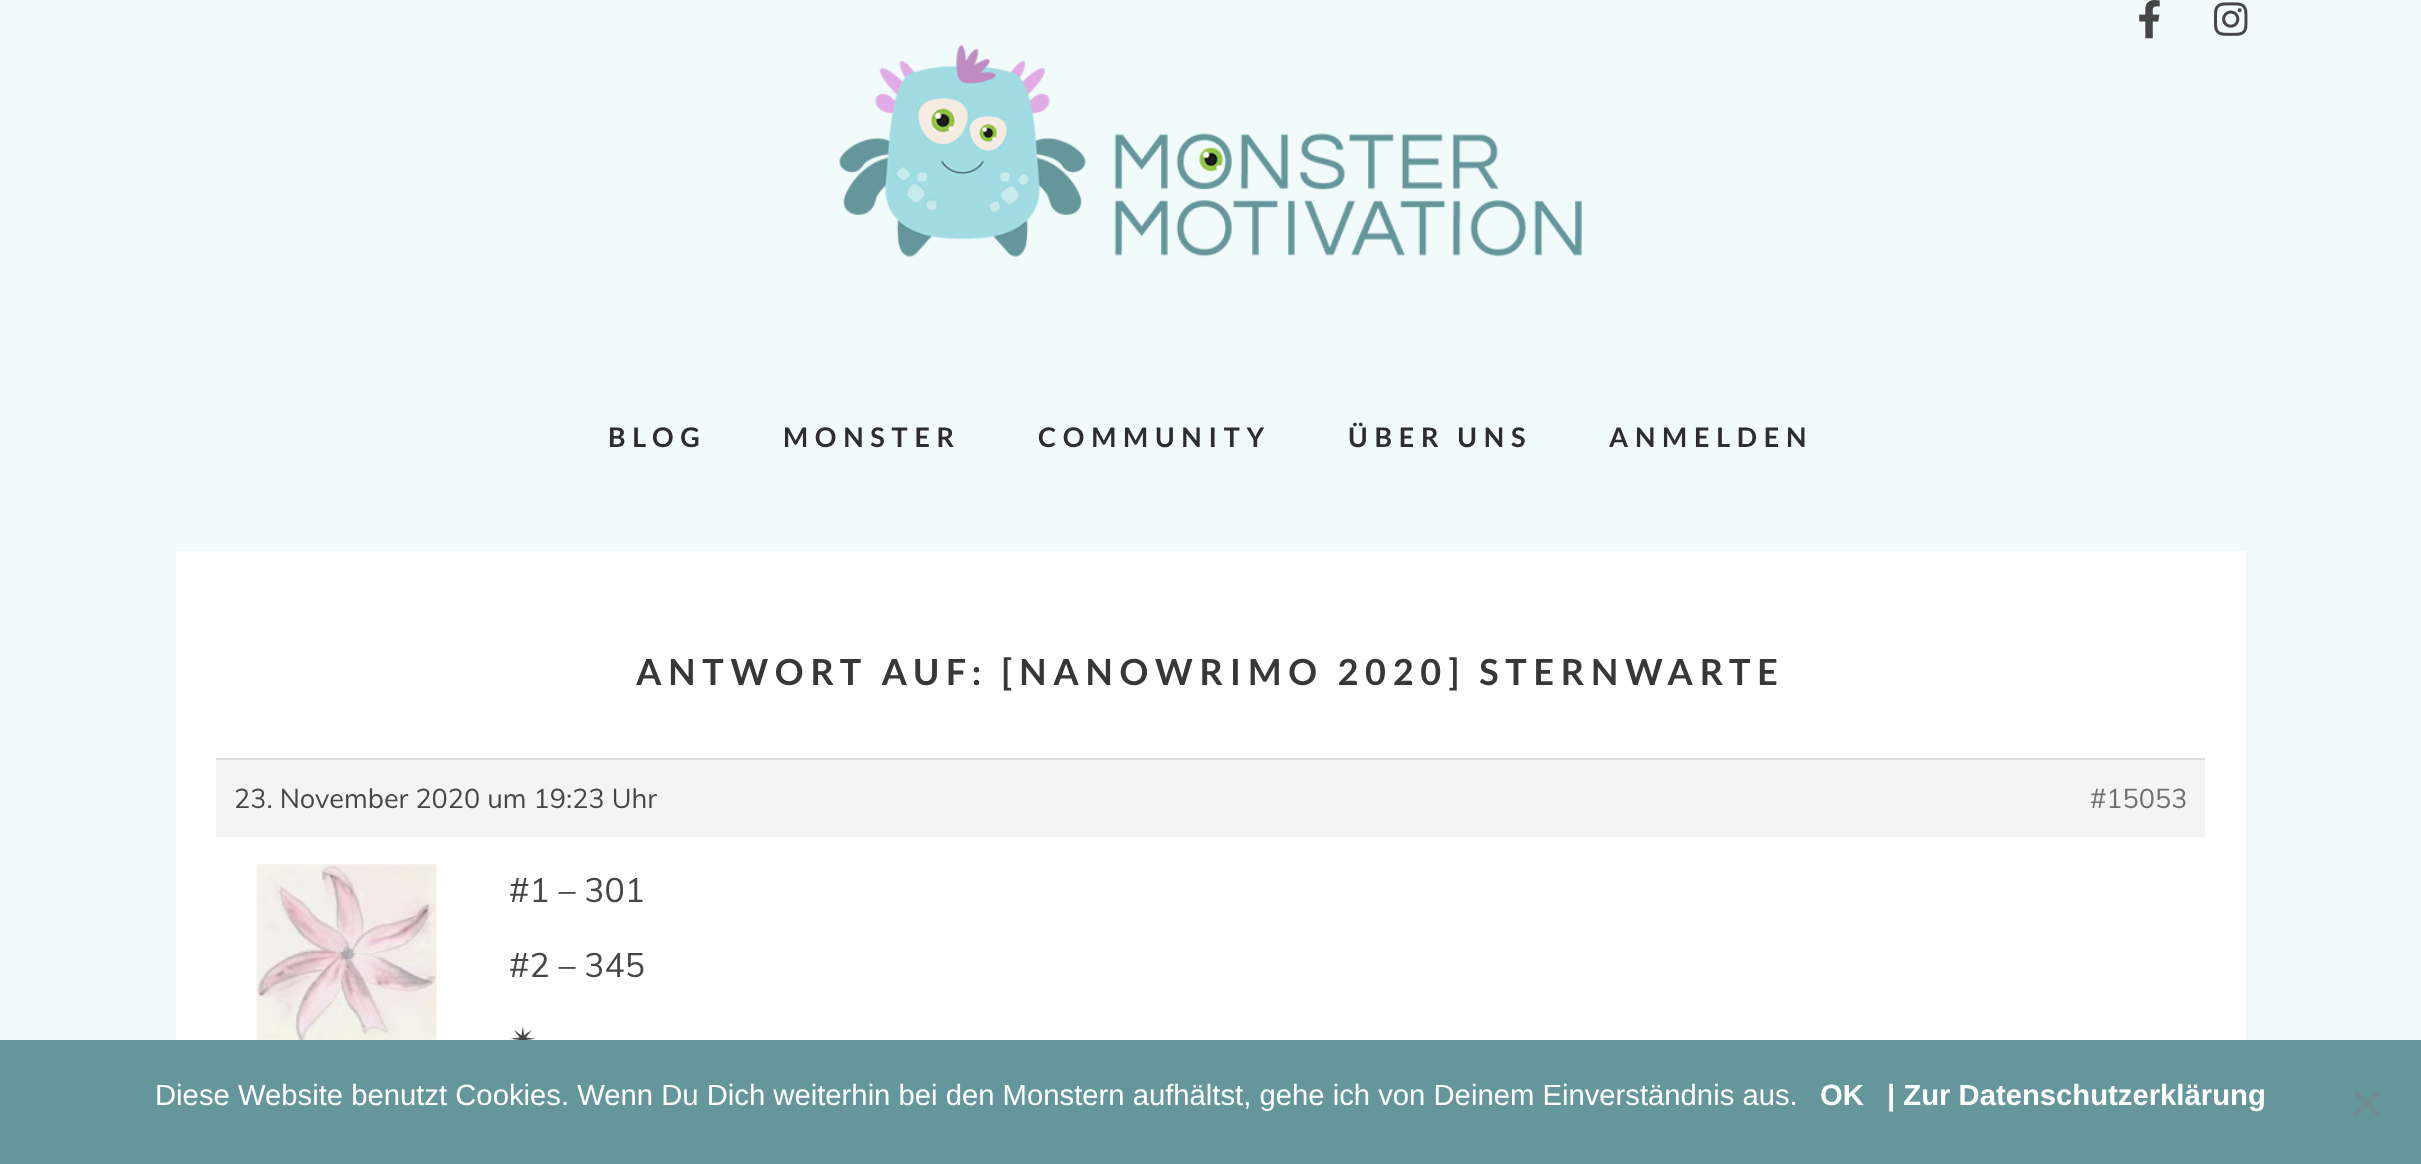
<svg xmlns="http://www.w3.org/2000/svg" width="2421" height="1164">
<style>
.a{font:bold 27px Lato;letter-spacing:6.75px;fill:#2d2d2d}
.b{font:bold 36px Lato;letter-spacing:6.75px;fill:#373737}
.c{font:27px Muli;fill:#464646}
.d{font:27px Muli;fill:#707070}
.e{font:33.75px Muli;fill:#464646}
.f{font:33.75px DejaVu Sans;fill:#464646}
.g{font:29.25px Liberation Sans;fill:#fff}
.h{font:bold 29.25px Liberation Sans;fill:#fff}
</style>
<rect width="100%" height="100%" fill="#f1fbfc"/>
<image href="1.png" x="839" y="44" width="743" height="213"/>
<image href="2.png" x="2139" y="0" width="21" height="39"/>
<image href="3.png" x="2214" y="2" width="34" height="34"/>
<path fill="#fff" d="M176 551h2070v489H176z"/>
<path fill="#f4f4f4" d="M216 760h1989v77H216z"/>
<path fill="#ddd" d="M216 758h1989v2H216z"/>
<image href="4.png" x="256" y="864" width="181" height="176"/>
<text class="a" x="608" y="447">BLOG</text>
<text class="a" x="783" y="447">MONSTER</text>
<text class="a" x="1038" y="447">COMMUNITY</text>
<text class="a" x="1348" y="447">ÜBER UNS</text>
<text class="a" x="1609" y="447">ANMELDEN</text>
<text class="b" x="636" y="685">ANTWORT AUF: [NANOWRIMO 2020] STERNWARTE</text>
<text class="c" x="234" y="808">23. November 2020 um 19:23 Uhr</text>
<text class="d" x="2090" y="808">#15053</text>
<text class="e" x="509" y="902">#1 – 301</text>
<text class="e" x="509" y="977">#2 – 345</text>
<text class="f" x="509" y="1051">✴</text>
<path fill="#64969b" d="M0 1040h2421v124H0z"/>
<text class="g" x="155" y="1105">Diese Website benutzt Cookies. Wenn Du Dich weiterhin bei den Monstern aufhältst, gehe ich von Deinem Einverständnis aus.</text>
<text class="h" x="1820" y="1105">OK</text>
<text class="h" x="1887" y="1105">| Zur Datenschutzerklärung</text>
<path fill="#728b8e" d="M2377.5 1090l3 3.5l-24 23.5l-3-3z"/>
<path fill="#728b8e" d="M2353.5 1093.5l3-3.5l24 24l-3 3z"/>
</svg>
